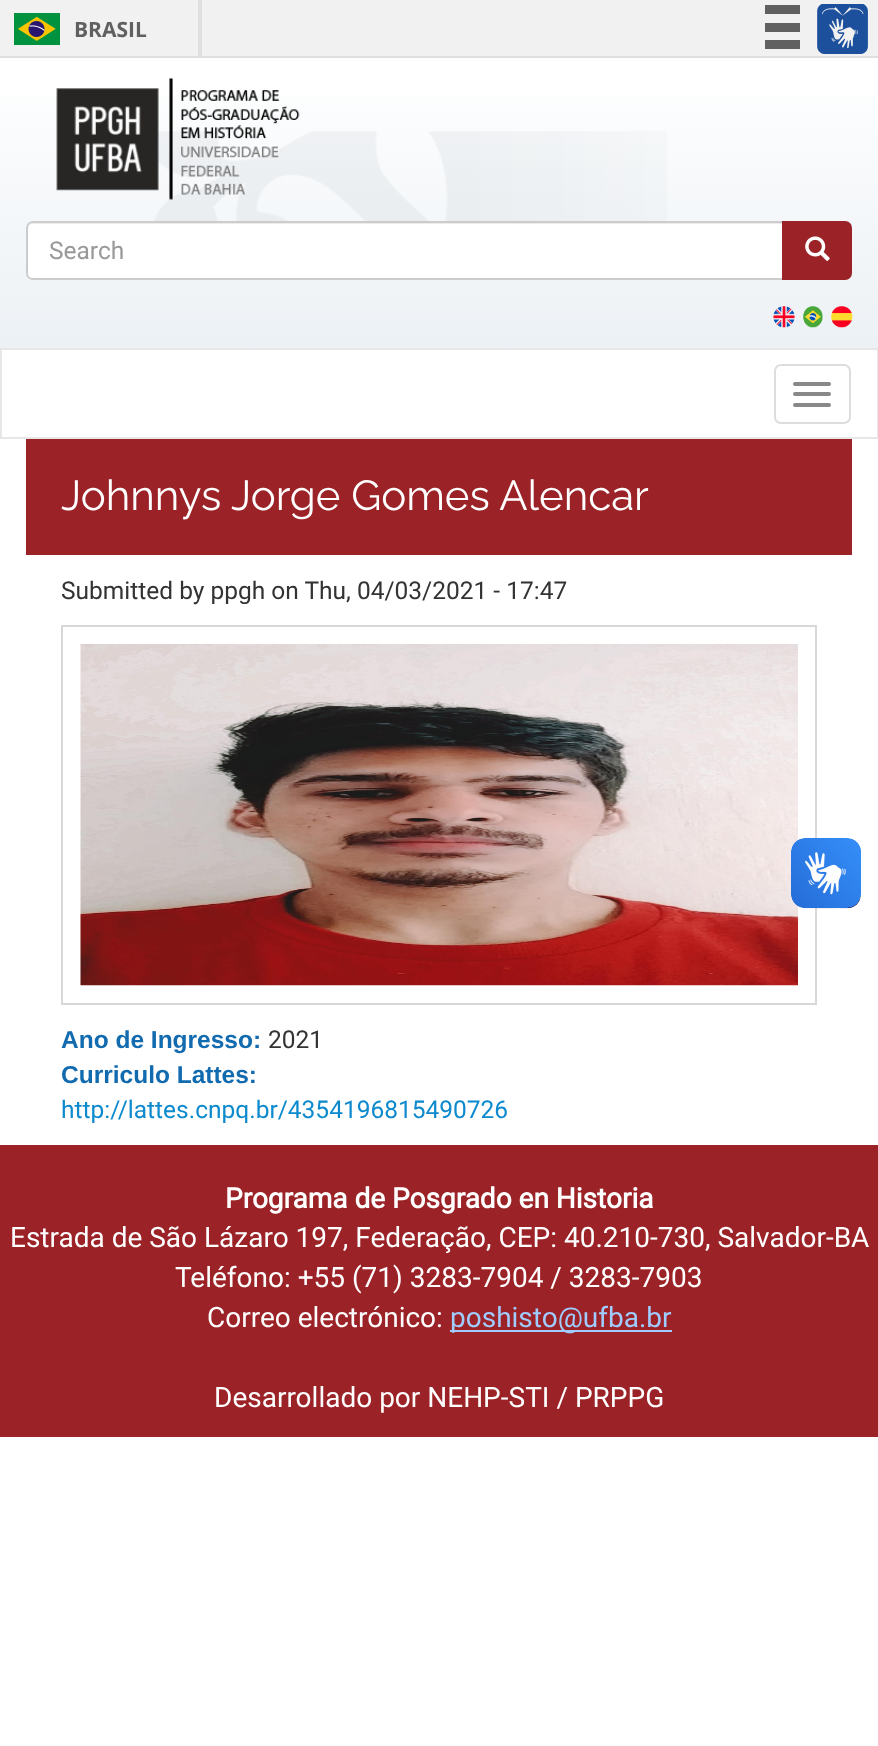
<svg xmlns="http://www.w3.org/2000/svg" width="878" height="1746">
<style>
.a{font:bold 21px Open Sans;fill:#606060}
.b{font:24.5px Roboto;fill:#999}
.c{font:42px Raleway;fill:#fff}
.d{font:24.5px Roboto;fill:#333}
.e{font:bold 24.5px Liberation Sans;fill:#126aaf}
.f{font:24.5px Roboto;fill:#0d8acd}
.g{font:bold 28px Roboto;fill:#fff}
.h{font:28px Roboto;fill:#fff}
.i{font:28px Roboto;fill:#a1ccff}
</style>
<defs>
<linearGradient id="g1" gradientUnits="userSpaceOnUse" x1="439" y1="58" x2="439" y2="348"><stop offset="0" stop-color="#fff"/><stop offset="1" stop-color="#ecf1f5"/></linearGradient>
</defs>
<rect width="100%" height="100%" fill="#fff"/>
<path fill="#f1f1f1" d="M0 0h878v56H0z"/>
<path fill="#dfdfdf" d="M0 56h878v2H0z"/>
<path fill="#dfdfdf" d="M198 0h4v56H198z"/>
<image href="1.png" x="14" y="13" width="46" height="32"/>
<path fill="#606060" d="M765 5h35v9H765z"/>
<path fill="#606060" d="M765 23h35v9H765z"/>
<path fill="#606060" d="M765 40h35v9H765z"/>
<image href="2.png" x="817" y="4" width="51" height="50"/>
<path fill="url(#g1)" d="M0 96h878v252H0z"/>
<image href="3.png" x="154" y="131" width="513" height="90"/>
<image href="4.png" x="56" y="78" width="244" height="122"/>
<path fill="#fff" d="M33 221h751v59h-751c-4 0-7-3-7-7v-45c0-4 3-7 7-7z"/>
<path fill="#ececec" d="M33 224h749v-2h-749c-4 0-5 4-5 7c0-3 2-5 5-5z"/>
<path fill="none" stroke="#ccc" stroke-width="2" d="M33 222h750v57h-750c-3.5 0-6-2.5-6-6v-45c0-3.5 2.5-6 6-6z"/>
<path fill="#9b2226" stroke="#9b2226" stroke-width="2" d="M783 222h62c3.5 0 6 2.5 6 6v45c0 3.5-2.5 6-6 6h-62z"/>
<image href="5.png" x="805" y="236" width="25" height="25"/>
<image href="6.png" x="773" y="306" width="22" height="22"/>
<image href="7.png" x="803" y="306" width="20" height="22"/>
<image href="8.png" x="831" y="306" width="22" height="22"/>
<path fill="none" stroke="#e7e7e7" stroke-width="2" d="M1 349h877v89H1z"/>
<rect fill="none" stroke="#ddd" stroke-width="2" x="775" y="365" width="75" height="58" rx="6"/>
<rect fill="#888" x="793" y="382" width="38" height="4" rx="2"/>
<rect fill="#888" x="793" y="392" width="38" height="4" rx="2"/>
<rect fill="#888" x="793" y="403" width="38" height="4" rx="2"/>
<path fill="#9b2226" d="M26 439h826v116H26z"/>
<path fill="none" stroke="#d8d8d8" stroke-width="2" d="M62 626h754v378H62z"/>
<image href="9.png" x="80" y="644" width="718" height="342"/>
<image href="10.png" x="791" y="838" width="70" height="71"/>
<image href="11.png" x="791" y="838" width="70" height="70"/>
<path fill="#9b2226" d="M0 1145h878v292H0z"/>
<path fill="#a1ccff" d="M450 1330h222v2H450z"/>
<text class="a" x="74" y="37">BRASIL</text>
<text class="b" x="49" y="259">Search</text>
<text class="c" x="61" y="510">Johnnys Jorge Gomes Alencar</text>
<text class="d" x="61" y="599">Submitted by ppgh on Thu, 04/03/2021 - 17:47</text>
<text class="e" x="61" y="1048">Ano de Ingresso:</text>
<text class="d" x="268" y="1048">2021</text>
<text class="e" x="61" y="1083">Curriculo Lattes:</text>
<text class="f" x="61" y="1118">http://lattes.cnpq.br/4354196815490726</text>
<text class="g" x="225" y="1208">Programa de Posgrado en Historia</text>
<text class="h" x="10" y="1247">Estrada de São Lázaro 197, Federação, CEP: 40.210-730, Salvador-BA</text>
<text class="h" x="175" y="1287">Teléfono: +55 (71) 3283-7904 / 3283-7903</text>
<text class="h" x="207" y="1327">Correo electrónico:</text>
<text class="i" x="450" y="1327">poshisto@ufba.br</text>
<text class="h" x="214" y="1407">Desarrollado por NEHP-STI / PRPPG</text>
</svg>
